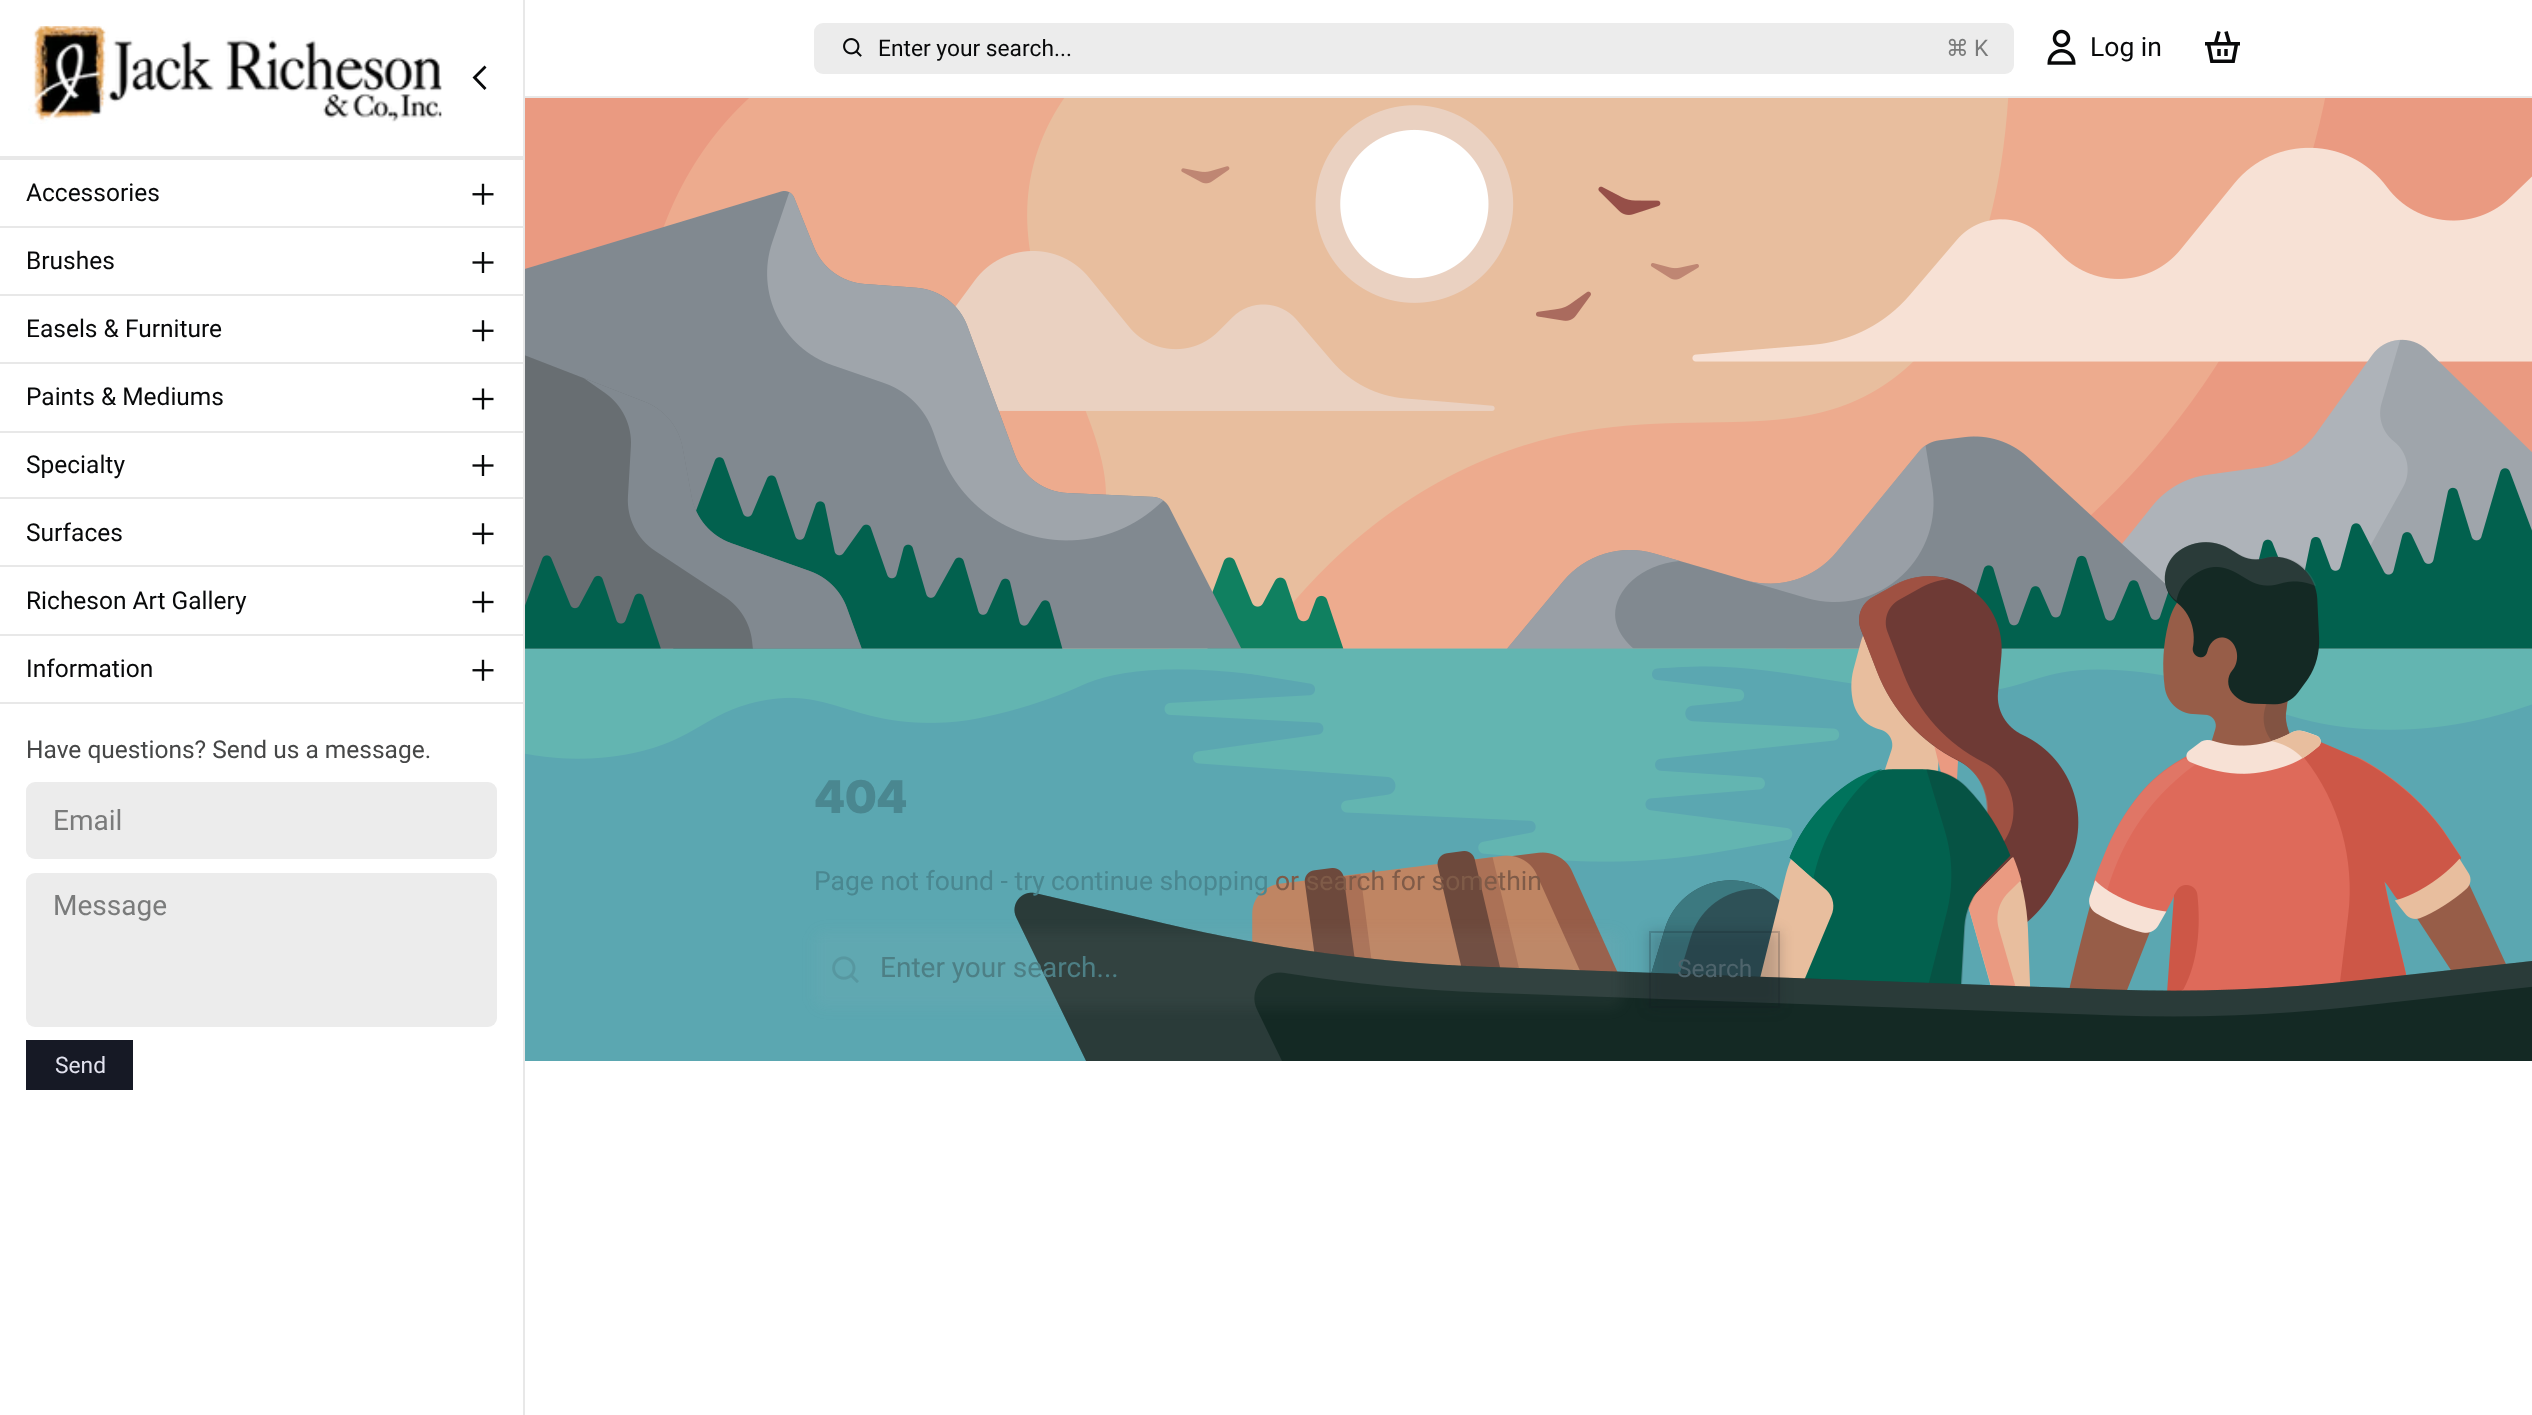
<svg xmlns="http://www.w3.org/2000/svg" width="2532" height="1415">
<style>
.a{font:24.5px Roboto;fill:#08090a}
.b{font:24.5px Roboto;fill:#464747}
.c{font:28px Roboto;fill:#7a7b7b}
.d{font:22.75px Roboto;fill:#e2e2ef}
.e{font:22.75px Roboto;fill:#08090a}
.f{font:22.75px DejaVu Sans;fill:#7a7b7b}
.g{font:22.75px Roboto;fill:#7a7b7b}
.h{font:26.5px Roboto;fill:#08090a}
.i{font:900 45px Inter;fill:#4a8790}
.j{font:26.5px Roboto;fill:#4a8790}
.k{font:26.5px Roboto;fill:#7f5b48}
.l{font:28px Roboto;fill:#4d7f85}
.m{font:24.5px Roboto;fill:#4e646c}
</style>
<rect width="100%" height="100%" fill="#fff"/>
<path fill="#e8e8e8" d="M523 0h2v1415H523z"/>
<image href="1.png" x="28" y="26" width="414" height="98"/>
<path fill="#08090a" fill-rule="evenodd" d="M486.5 67.5l-10 10l10 10.5l-2 2l-12-12.5l12-12z"/>
<path fill="#e8e8e8" d="M0 156h523v4H0z"/>
<image href="2.png" x="472" y="183" width="22" height="22"/>
<path fill="#e8e8e8" d="M0 226h523v2H0z"/>
<image href="3.png" x="472" y="252" width="22" height="21"/>
<path fill="#e8e8e8" d="M0 294h523v2H0z"/>
<image href="4.png" x="472" y="320" width="22" height="22"/>
<path fill="#e8e8e8" d="M0 362h523v2H0z"/>
<image href="5.png" x="472" y="388" width="22" height="22"/>
<path fill="#e8e8e8" d="M0 431h523v2H0z"/>
<image href="3.png" x="472" y="455" width="22" height="21"/>
<path fill="#e8e8e8" d="M0 497h523v2H0z"/>
<image href="4.png" x="472" y="523" width="22" height="22"/>
<path fill="#e8e8e8" d="M0 565h523v2H0z"/>
<image href="5.png" x="472" y="591" width="22" height="22"/>
<path fill="#e8e8e8" d="M0 634h523v2H0z"/>
<image href="2.png" x="472" y="659" width="22" height="22"/>
<path fill="#e8e8e8" d="M0 702h523v2H0z"/>
<rect fill="#ececec" x="26" y="782" width="471" height="77" rx="9"/>
<rect fill="#ececec" x="26" y="873" width="471" height="154" rx="9"/>
<path fill="#161925" d="M26 1040h107v50H26z"/>
<path fill="#e8e8e8" d="M525 96h2007v2H525z"/>
<rect fill="#ececec" x="814" y="23" width="1200" height="51" rx="9"/>
<image href="6.png" x="843" y="38" width="19" height="19"/>
<image href="7.png" x="2047" y="29" width="29" height="36"/>
<image href="8.png" x="2205" y="31" width="35" height="32"/>
<image href="9.png" x="525" y="98" width="2007" height="963"/>
<rect fill="#bfbfbf0f" filter="blur(7px)" x="814" y="931" width="808" height="77" rx="9"/>
<image href="10.png" x="832" y="956" width="27" height="27"/>
<path fill="#16192533" filter="blur(7px)" d="M1649 931h131v77H1649z"/>
<path fill="none" stroke="#16192533" stroke-width="2" d="M1650 932h129v75H1650z"/>
<text class="a" x="26" y="201">Accessories</text>
<text class="a" x="26" y="269">Brushes</text>
<text class="a" x="26" y="337">Easels &amp; Furniture</text>
<text class="a" x="26" y="405">Paints &amp; Mediums</text>
<text class="a" x="26" y="473">Specialty</text>
<text class="a" x="26" y="541">Surfaces</text>
<text class="a" x="26" y="609">Richeson Art Gallery</text>
<text class="a" x="26" y="677">Information</text>
<text class="b" x="26" y="758">Have questions? Send us a message.</text>
<text class="c" x="53" y="830">Email</text>
<text class="c" x="53" y="915">Message</text>
<text class="d" x="55" y="1073">Send</text>
<text class="e" x="878" y="56">Enter your search...</text>
<text class="f" x="1946" y="56">⌘</text>
<text class="g" x="1974" y="56">K</text>
<text class="h" x="2090" y="56">Log in</text>
<text class="i" x="814" y="813">404</text>
<text class="j" x="814" y="890">Page not found - try</text>
<text class="j" x="1051" y="890">continue shopping</text>
<text class="k" x="1275" y="890">or search for somethin</text>
<text class="l" x="880" y="977">Enter your search...</text>
<text class="m" x="1677" y="977">Search</text>
</svg>
